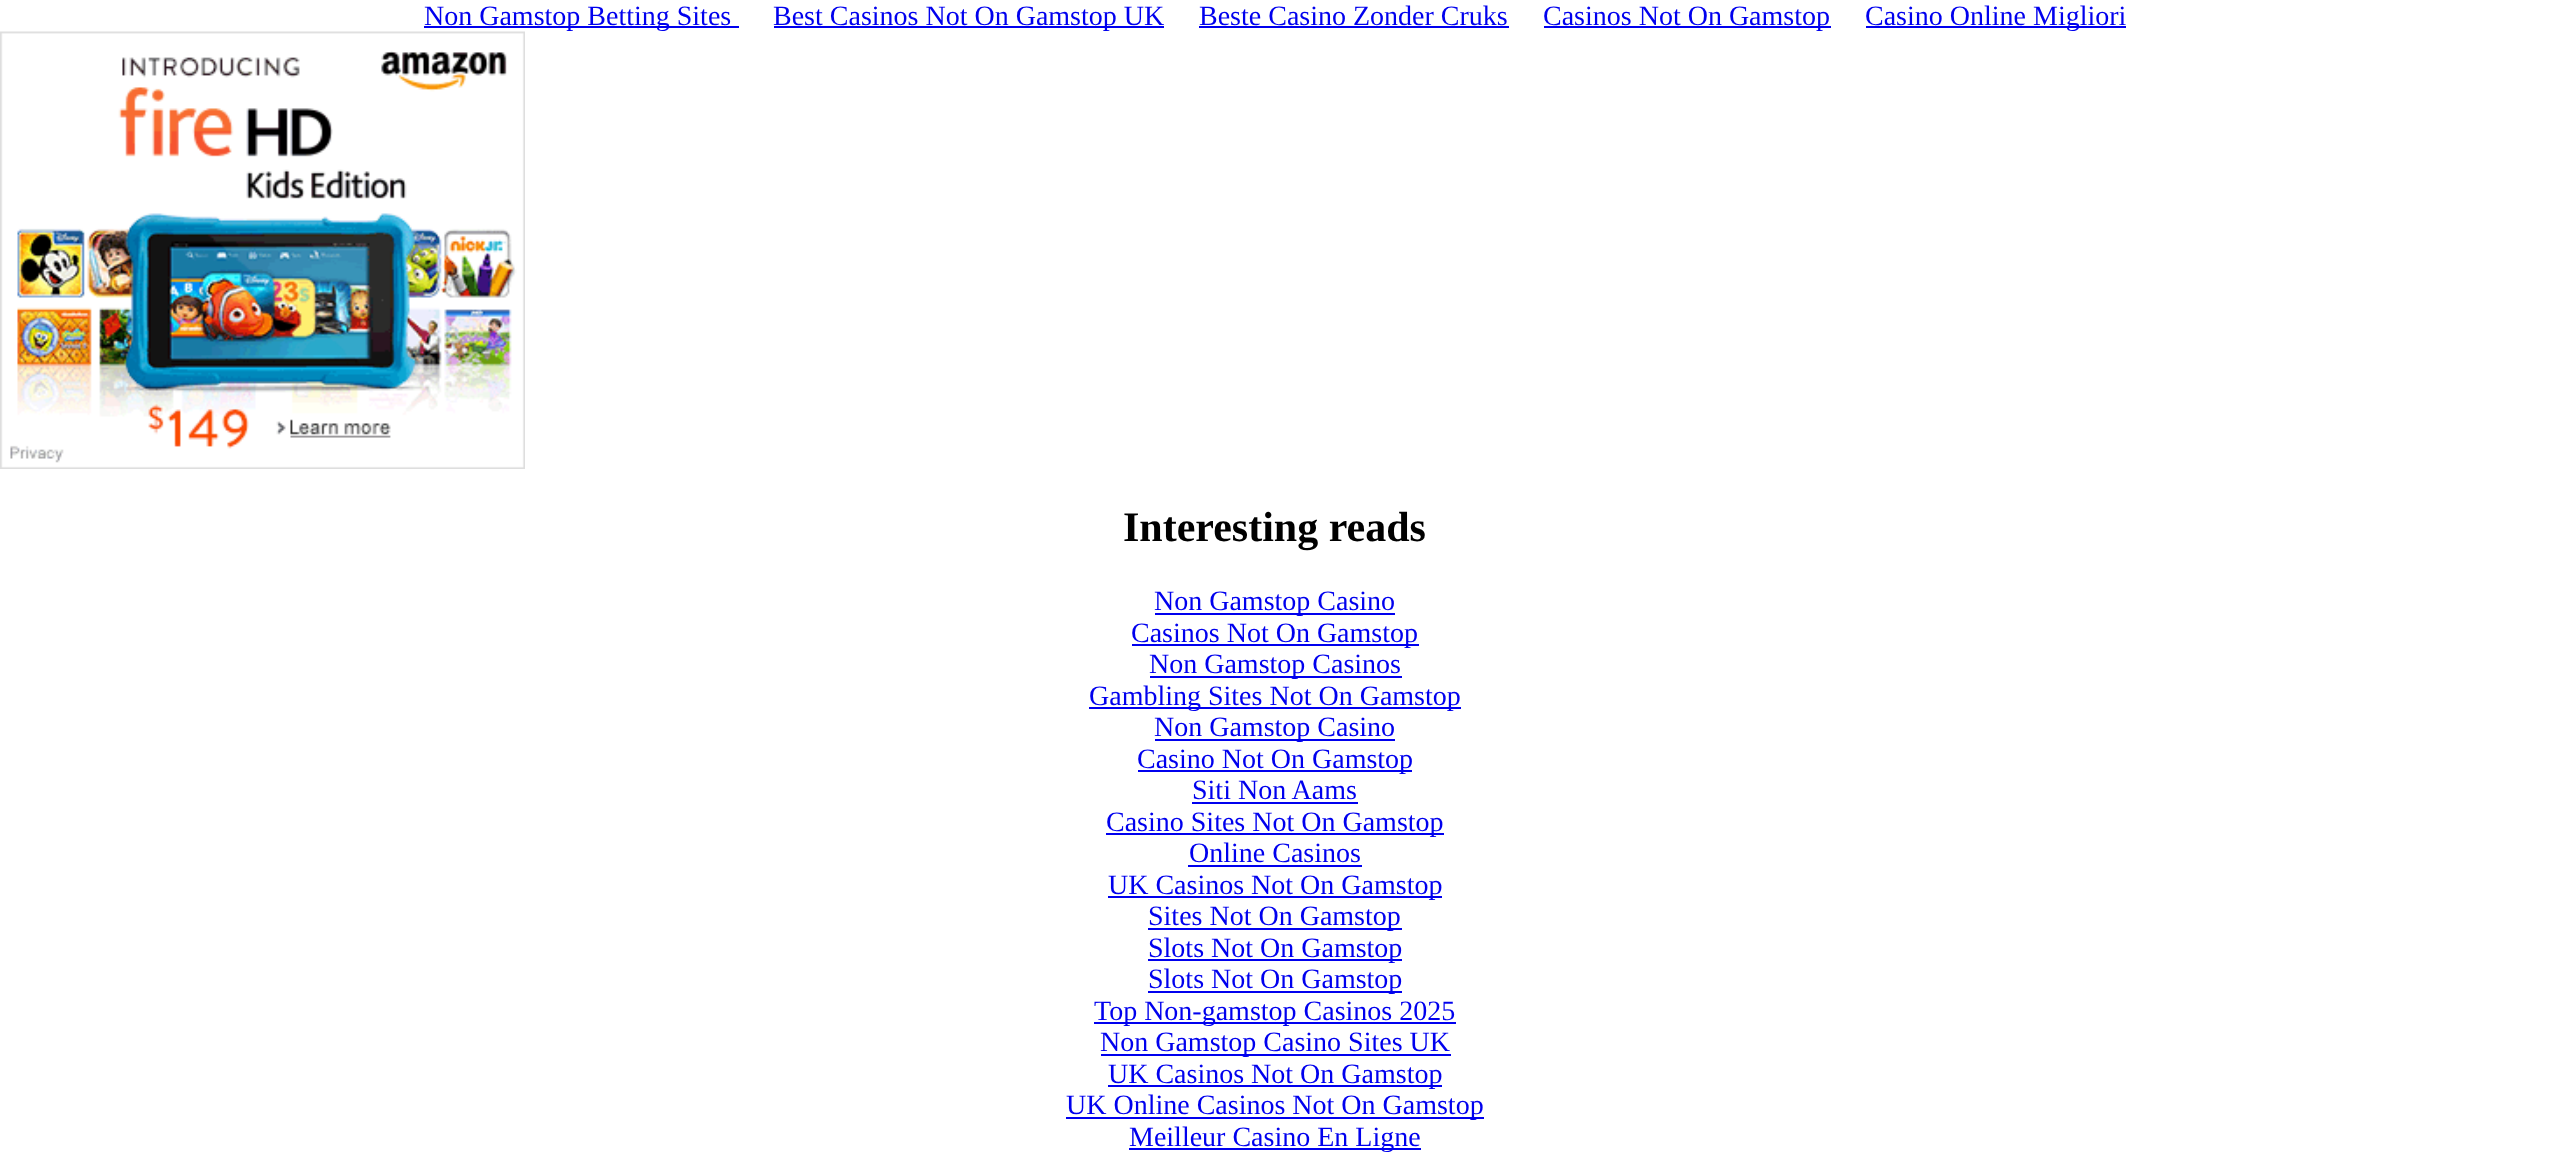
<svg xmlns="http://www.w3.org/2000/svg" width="2549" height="1162">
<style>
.a{font:28px Liberation Serif;fill:#00e}
.b{font:bold 42px Liberation Serif;fill:#000}
</style>
<rect width="100%" height="100%" fill="#fff"/>
<path fill="#00e" d="M424 26h315v2H424z"/>
<path fill="#00e" d="M774 26h390v2H774z"/>
<path fill="#00e" d="M1199 26h310v2H1199z"/>
<path fill="#00e" d="M1544 26h287v2H1544z"/>
<path fill="#00e" d="M1866 26h260v2H1866z"/>
<path fill="#00e" d="M1155 613h240v2H1155z"/>
<path fill="#00e" d="M1132 644h287v2H1132z"/>
<path fill="#00e" d="M1150 676h252v2H1150z"/>
<path fill="#00e" d="M1089 707h372v2H1089z"/>
<path fill="#00e" d="M1155 739h240v2H1155z"/>
<path fill="#00e" d="M1138 770h274v2H1138z"/>
<path fill="#00e" d="M1192 802h166v2H1192z"/>
<path fill="#00e" d="M1106 833h338v2H1106z"/>
<path fill="#00e" d="M1188 865h174v2H1188z"/>
<path fill="#00e" d="M1108 896h334v2H1108z"/>
<path fill="#00e" d="M1148 928h254v2H1148z"/>
<path fill="#00e" d="M1148 959h254v2H1148z"/>
<path fill="#00e" d="M1148 991h254v2H1148z"/>
<path fill="#00e" d="M1094 1022h362v2H1094z"/>
<path fill="#00e" d="M1101 1054h350v2H1101z"/>
<path fill="#00e" d="M1108 1085h334v2H1108z"/>
<path fill="#00e" d="M1066 1117h418v2H1066z"/>
<path fill="#00e" d="M1129 1148h292v2H1129z"/>
<text class="a" x="424" y="25">Non Gamstop Betting Sites</text>
<text class="a" x="773" y="25">Best Casinos Not On Gamstop UK</text>
<text class="a" x="1199" y="25">Beste Casino Zonder Cruks</text>
<text class="a" x="1543" y="25">Casinos Not On Gamstop</text>
<text class="a" x="1865" y="25">Casino Online Migliori</text>
<image href="1.png" x="0" y="31" width="525" height="438"/>
<text class="b" x="1123" y="541">Interesting reads</text>
<text class="a" x="1154" y="610">Non Gamstop Casino</text>
<text class="a" x="1131" y="642">Casinos Not On Gamstop</text>
<text class="a" x="1149" y="673">Non Gamstop Casinos</text>
<text class="a" x="1089" y="705">Gambling Sites Not On Gamstop</text>
<text class="a" x="1154" y="736">Non Gamstop Casino</text>
<text class="a" x="1137" y="768">Casino Not On Gamstop</text>
<text class="a" x="1192" y="799">Siti Non Aams</text>
<text class="a" x="1106" y="831">Casino Sites Not On Gamstop</text>
<text class="a" x="1189" y="862">Online Casinos</text>
<text class="a" x="1108" y="894">UK Casinos Not On Gamstop</text>
<text class="a" x="1148" y="925">Sites Not On Gamstop</text>
<text class="a" x="1148" y="957">Slots Not On Gamstop</text>
<text class="a" x="1148" y="988">Slots Not On Gamstop</text>
<text class="a" x="1094" y="1020">Top Non-gamstop Casinos 2025</text>
<text class="a" x="1100" y="1051">Non Gamstop Casino Sites UK</text>
<text class="a" x="1108" y="1083">UK Casinos Not On Gamstop</text>
<text class="a" x="1066" y="1114">UK Online Casinos Not On Gamstop</text>
<text class="a" x="1129" y="1146">Meilleur Casino En Ligne</text>
</svg>
